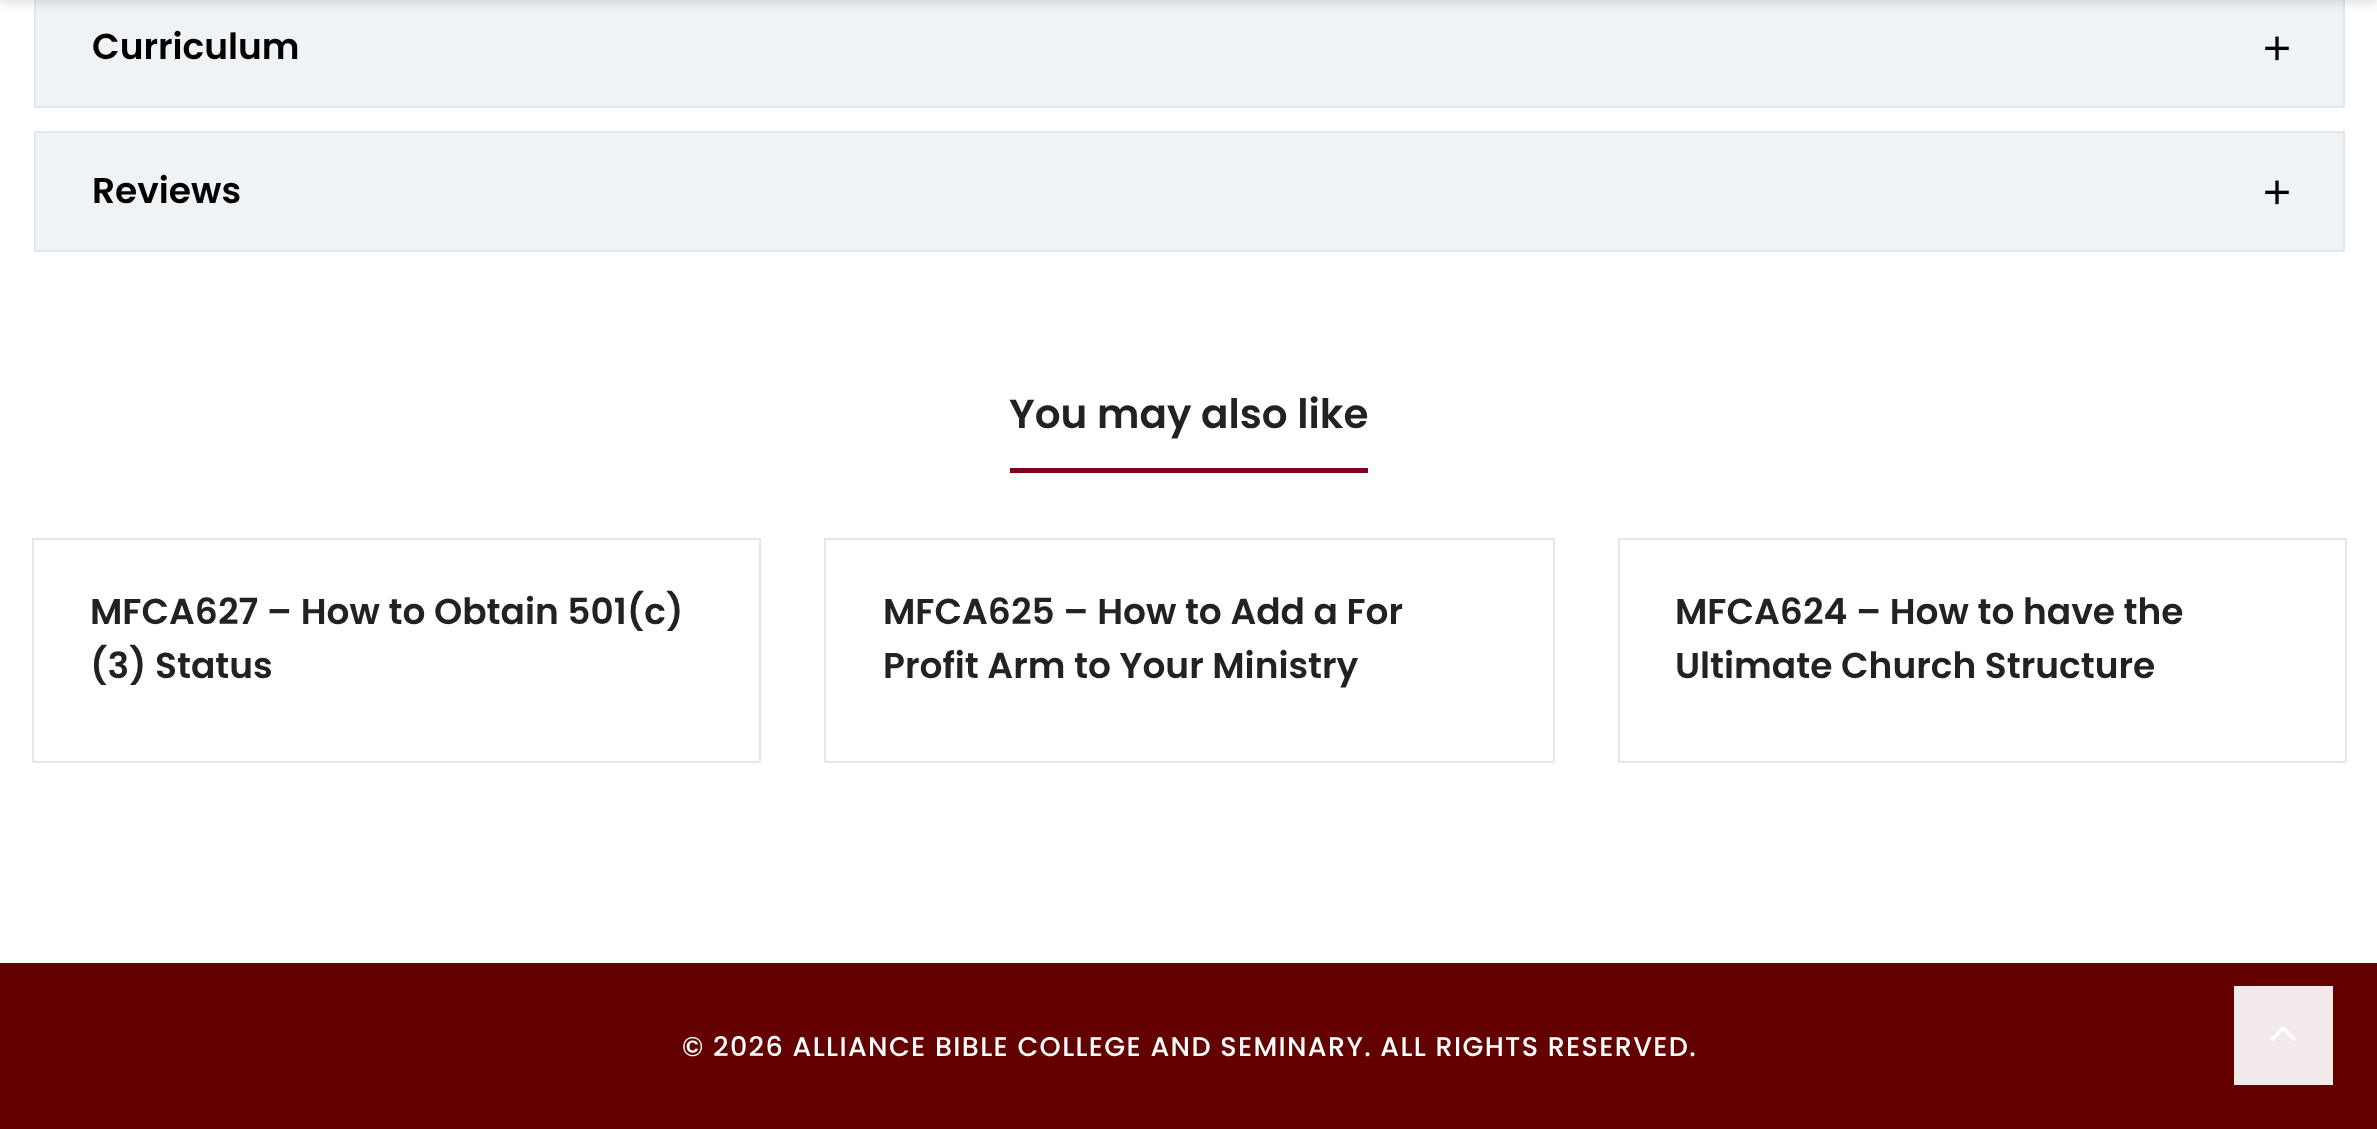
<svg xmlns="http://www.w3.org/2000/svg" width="2377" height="1129">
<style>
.a{font:600 36px Poppins;fill:#000}
.b{font:600 40.5px Poppins;fill:#222}
.c{font:600 36px Poppins;fill:#222}
.d{font:500 27px Poppins;letter-spacing:1.35px;fill:#fff}
</style>
<rect width="100%" height="100%" fill="#fff"/>
<path fill="#f0f3f6" stroke="#e2e7ed" stroke-width="2" d="M35 -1h2309v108H35z"/>
<path fill="#00000026" filter="blur(5.5px)" d="M0 -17h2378v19H0z"/>
<image href="1.png" x="2265" y="36" width="24" height="25"/>
<path fill="#f0f3f6" stroke="#e2e7ed" stroke-width="2" d="M35 132h2309v119H35z"/>
<image href="1.png" x="2265" y="180" width="24" height="25"/>
<path fill="#800020" d="M1010 468h358v5H1010z"/>
<path fill="none" stroke="#e2e7ed" stroke-width="2" d="M33 539h727v223H33z"/>
<path fill="none" stroke="#e2e7ed" stroke-width="2" d="M825 539h729v223H825z"/>
<path fill="none" stroke="#e2e7ed" stroke-width="2" d="M1619 539h727v223H1619z"/>
<path fill="#630000" d="M0 963h2377v166H0z"/>
<path fill="#f3ebeb" d="M2234 986h99v99H2234z"/>
<image href="2.png" x="2270" y="1026" width="26" height="15"/>
<text class="a" x="92" y="59">Curriculum</text>
<text class="a" x="92" y="203">Reviews</text>
<text class="b" x="1009" y="428">You may also like</text>
<text class="c" x="90" y="624">MFCA627 – How to Obtain 501(c)</text>
<text class="c" x="90" y="678">(3) Status</text>
<text class="c" x="883" y="624">MFCA625 – How to Add a For</text>
<text class="c" x="883" y="678">Profit Arm to Your Ministry</text>
<text class="c" x="1675" y="624">MFCA624 – How to have the</text>
<text class="c" x="1675" y="678">Ultimate Church Structure</text>
<text class="d" x="682" y="1056">© 2026 ALLIANCE BIBLE COLLEGE AND SEMINARY. ALL RIGHTS RESERVED.</text>
</svg>
